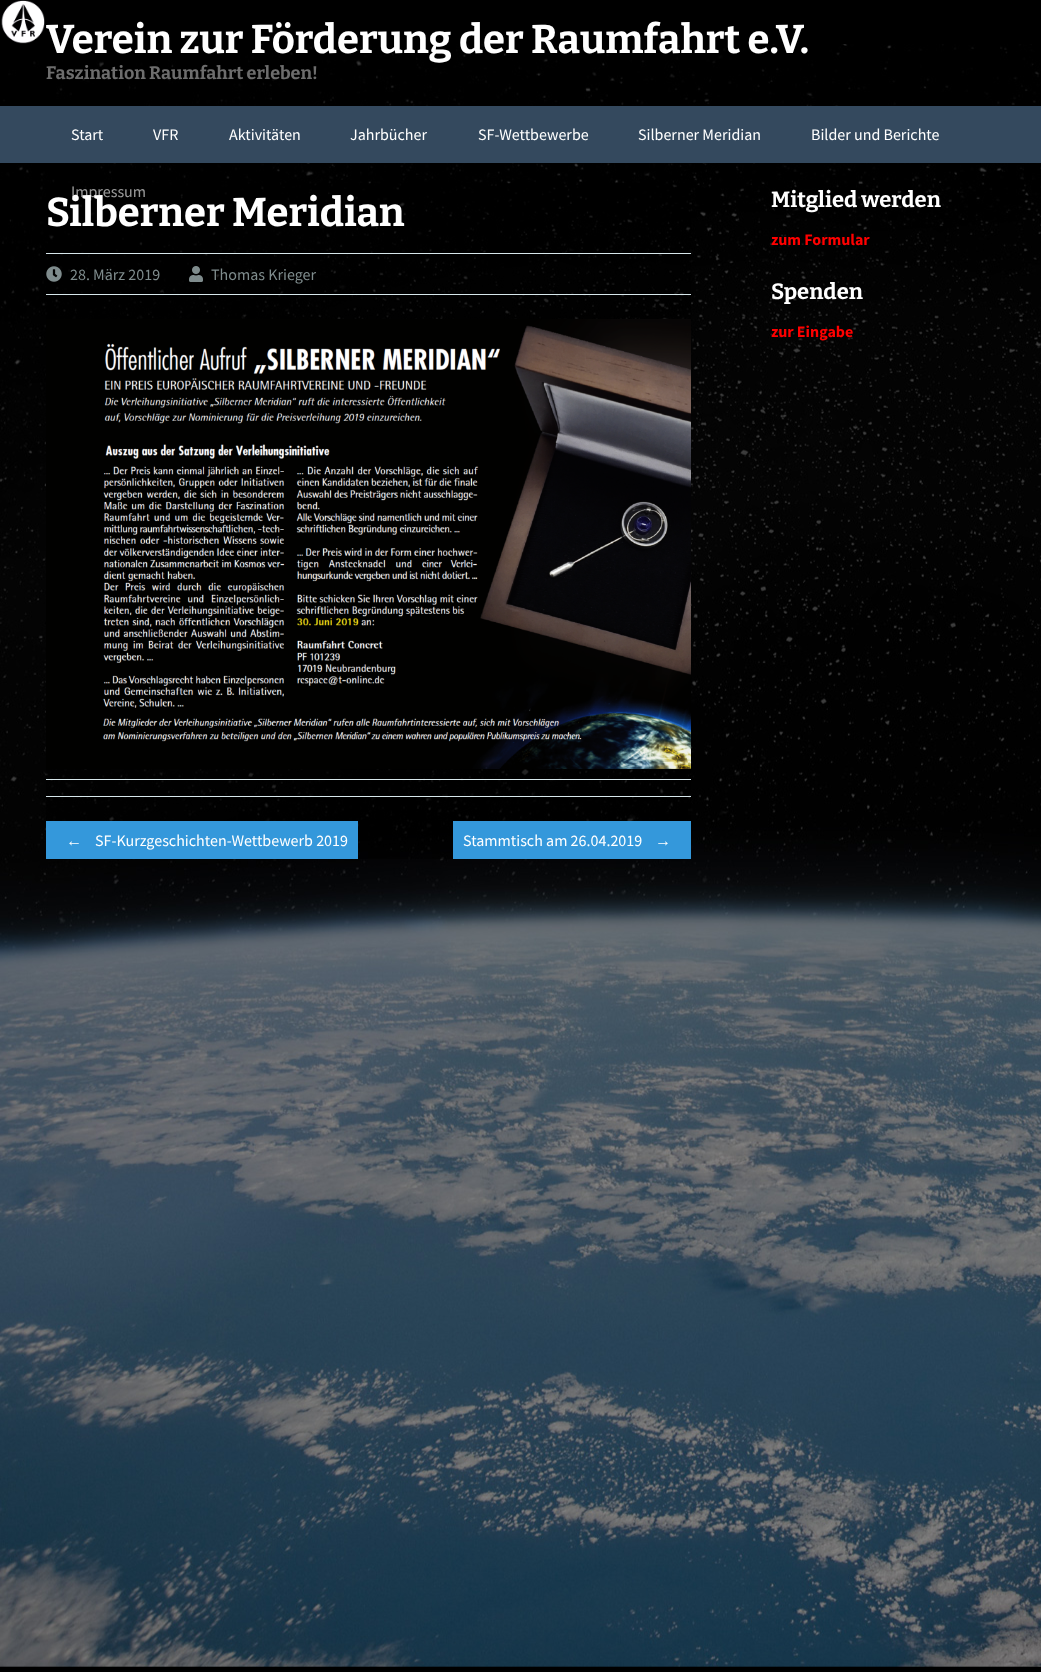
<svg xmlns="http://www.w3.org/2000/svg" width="1041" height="1672">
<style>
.a{font:bold 40px Bitter;fill:#fff}
.b{font:bold 18px Bitter;fill:#6d6d6d}
.c{font:16px Source Sans Pro;fill:#fff}
.d{font:16px Source Sans Pro;fill:#7f8c8d}
.e{font:16px Liberation Sans;fill:#fff}
.f{font:bold 22px Bitter;fill:#fff}
.g{font:bold 16px Source Sans Pro;fill:#f00}
</style>
<rect width="100%" height="100%" fill="#fff"/>
<image href="1.png" x="0" y="44" width="1041" height="1628"/>
<image href="2.png" x="0" y="0" width="1041" height="44"/>
<path fill="#34495e" d="M0 106h1041v57H0z"/>
<text class="a" x="46" y="53">Verein zur Förderung der Raumfahrt e.V.</text>
<text class="b" x="46" y="79">Faszination Raumfahrt erleben!</text>
<text class="c" x="71" y="140">Start</text>
<text class="c" x="153" y="140">VFR</text>
<text class="c" x="229" y="140">Aktivitäten</text>
<text class="c" x="350" y="140">Jahrbücher</text>
<text class="c" x="478" y="140">SF-Wettbewerbe</text>
<text class="c" x="638" y="140">Silberner Meridian</text>
<text class="c" x="811" y="140">Bilder und Berichte</text>
<text class="c" x="71" y="197">Impressum</text>
<path fill="#00000066" d="M46 183h645v676H46z"/>
<text class="a" x="46" y="226">Silberner Meridian</text>
<path fill="#d6e6ea" d="M46 253h645v1H46z"/>
<path fill="#d6e6ea" d="M46 294h645v1H46z"/>
<image href="3.png" x="46" y="266" width="16" height="16"/>
<text class="d" x="70" y="280">28. März 2019</text>
<image href="4.png" x="189" y="266" width="14" height="16"/>
<text class="d" x="211" y="280">Thomas Krieger</text>
<image href="5.png" x="46" y="319" width="645" height="450"/>
<path fill="#d6e6ea" d="M46 779h645v1H46z"/>
<path fill="#d6e6ea" d="M46 796h645v1H46z"/>
<path fill="#3498db" d="M46 821h312v38H46z"/>
<text class="e" x="66" y="846">←</text>
<text class="c" x="95" y="846">SF-Kurzgeschichten-Wettbewerb 2019</text>
<path fill="#3498db" d="M453 821h238v38H453z"/>
<text class="c" x="463" y="846">Stammtisch am 26.04.2019</text>
<text class="e" x="655" y="846">→</text>
<text class="f" x="771" y="207">Mitglied werden</text>
<text class="g" x="771" y="245">zum Formular</text>
<text class="f" x="771" y="299">Spenden</text>
<text class="g" x="771" y="337">zur Eingabe</text>
</svg>
